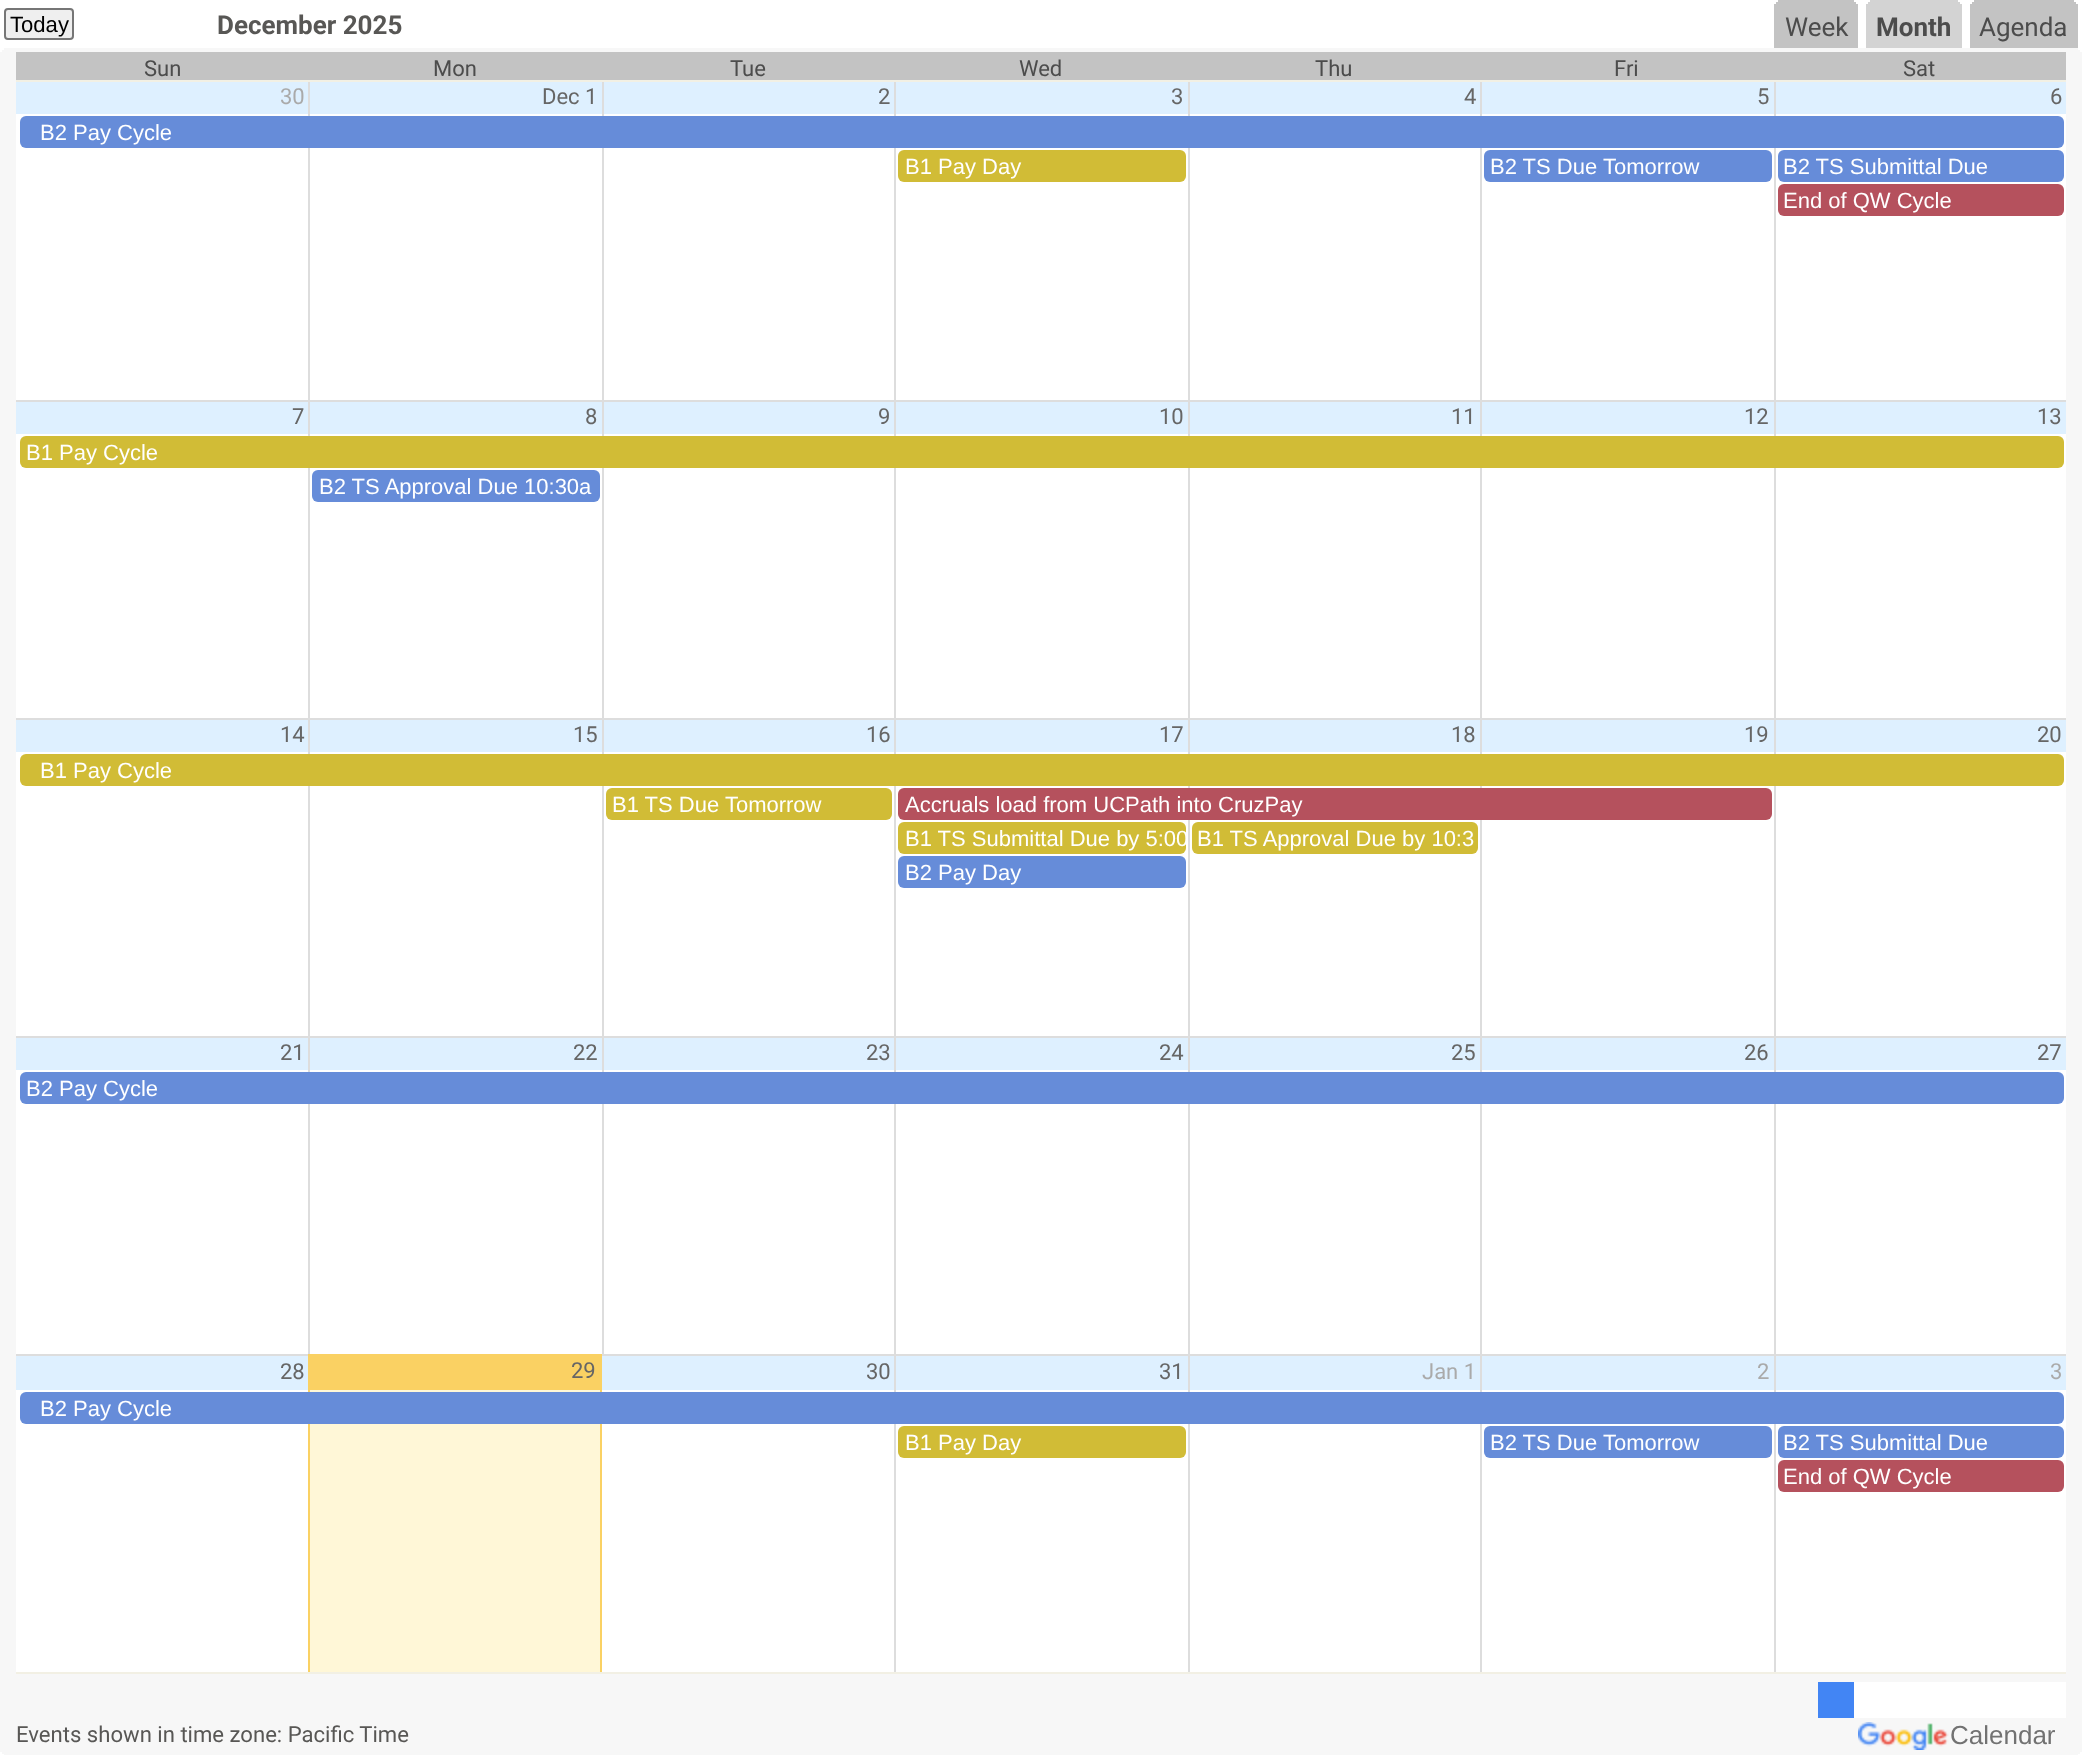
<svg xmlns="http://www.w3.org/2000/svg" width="2082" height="1755">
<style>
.a{font:22.1px Liberation Sans;fill:#000}
.b{font:bold 26px Roboto;fill:#585755}
.c{font:26px Roboto;fill:#4c4c4c}
.d{font:bold 26px Roboto;fill:#4c4c4c}
.e{font:22px Roboto;fill:#4c4c4c}
.f{font:22px Roboto;fill:#aaa}
.g{font:22px Roboto;fill:#666}
.h{font:22px Liberation Sans;fill:#fff}
.i{font:22.1px Roboto;fill:#585755}
.j{font:26px Liberation Sans;fill:#727272}
</style>
<defs>
<clipPath id="clip1"><rect x="898" y="822" width="288" height="32" rx="6"/></clipPath>
</defs>
<rect width="100%" height="100%" fill="#fff"/>
<rect fill="#efefef" stroke="#767676" stroke-width="2" x="5" y="9" width="68" height="30" rx="3"/>
<path fill="#c3c3c3" d="M1778 0h76v2H1778z"/>
<path fill="#c3c3c3" d="M1776 2h80v2H1776z"/>
<path fill="#c3c3c3" d="M1774 4h84v44H1774z"/>
<path fill="#d3d3d3" d="M1870 0h88v2H1870z"/>
<path fill="#d3d3d3" d="M1868 2h92v2H1868z"/>
<path fill="#d3d3d3" d="M1866 4h96v44H1866z"/>
<path fill="#c3c3c3" d="M1974 0h100v2H1974z"/>
<path fill="#c3c3c3" d="M1972 2h104v2H1972z"/>
<path fill="#c3c3c3" d="M1970 4h108v44H1970z"/>
<path fill="#f7f7f7" d="M4 48h2074v2H4z"/>
<path fill="#f7f7f7" d="M2 50h2078v2H2z"/>
<path fill="#f7f7f7" d="M0 52h2082v1700H0z"/>
<path fill="#c3c3c3" d="M16 52h2050v28H16z"/>
<path fill="#fff" d="M16 114h2050v1558H16z"/>
<path fill="#f2f0e4" d="M16 80h2050v2H16z"/>
<path fill="#f2f0e4" d="M16 1672h2050v2H16z"/>
<path fill="#ddd" d="M308 82h2v318H308z"/>
<path fill="#ddd" d="M602 82h2v318H602z"/>
<path fill="#ddd" d="M894 82h2v318H894z"/>
<path fill="#ddd" d="M1188 82h2v318H1188z"/>
<path fill="#ddd" d="M1480 82h2v318H1480z"/>
<path fill="#ddd" d="M1774 82h2v318H1774z"/>
<path fill="#def0ff" d="M16 82h292v32H16z"/>
<path fill="#def0ff" d="M310 82h292v32H310z"/>
<path fill="#def0ff" d="M604 82h290v32H604z"/>
<path fill="#def0ff" d="M896 82h292v32H896z"/>
<path fill="#def0ff" d="M1190 82h290v32H1190z"/>
<path fill="#def0ff" d="M1482 82h292v32H1482z"/>
<path fill="#def0ff" d="M1776 82h290v32H1776z"/>
<rect fill="#668cd9" x="20" y="116" width="2044" height="32" rx="6"/>
<rect fill="#d1bc36" x="898" y="150" width="288" height="32" rx="6"/>
<rect fill="#668cd9" x="1484" y="150" width="288" height="32" rx="6"/>
<rect fill="#668cd9" x="1778" y="150" width="286" height="32" rx="6"/>
<rect fill="#b5515d" x="1778" y="184" width="286" height="32" rx="6"/>
<path fill="#def0ff" d="M16 402h292v32H16z"/>
<path fill="#ddd" d="M16 400h2050v2H16z"/>
<path fill="#def0ff" d="M310 402h292v32H310z"/>
<path fill="#ddd" d="M308 400h2v34H308z"/>
<path fill="#def0ff" d="M604 402h290v32H604z"/>
<path fill="#ddd" d="M602 400h2v34H602z"/>
<path fill="#def0ff" d="M896 402h292v32H896z"/>
<path fill="#ddd" d="M894 400h2v34H894z"/>
<path fill="#def0ff" d="M1190 402h290v32H1190z"/>
<path fill="#ddd" d="M1188 400h2v34H1188z"/>
<path fill="#def0ff" d="M1482 402h292v32H1482z"/>
<path fill="#ddd" d="M1480 400h2v34H1480z"/>
<path fill="#def0ff" d="M1776 402h290v32H1776z"/>
<path fill="#ddd" d="M1774 400h2v34H1774z"/>
<path fill="#ddd" d="M308 434h2v284H308z"/>
<path fill="#ddd" d="M602 434h2v284H602z"/>
<path fill="#ddd" d="M894 434h2v284H894z"/>
<path fill="#ddd" d="M1188 434h2v284H1188z"/>
<path fill="#ddd" d="M1480 434h2v284H1480z"/>
<path fill="#ddd" d="M1774 434h2v284H1774z"/>
<rect fill="#d1bc36" x="20" y="436" width="2044" height="32" rx="6"/>
<rect fill="#668cd9" x="312" y="470" width="288" height="32" rx="6"/>
<path fill="#def0ff" d="M16 720h292v32H16z"/>
<path fill="#ddd" d="M16 718h2050v2H16z"/>
<path fill="#def0ff" d="M310 720h292v32H310z"/>
<path fill="#ddd" d="M308 718h2v34H308z"/>
<path fill="#def0ff" d="M604 720h290v32H604z"/>
<path fill="#ddd" d="M602 718h2v34H602z"/>
<path fill="#def0ff" d="M896 720h292v32H896z"/>
<path fill="#ddd" d="M894 718h2v34H894z"/>
<path fill="#def0ff" d="M1190 720h290v32H1190z"/>
<path fill="#ddd" d="M1188 718h2v34H1188z"/>
<path fill="#def0ff" d="M1482 720h292v32H1482z"/>
<path fill="#ddd" d="M1480 718h2v34H1480z"/>
<path fill="#def0ff" d="M1776 720h290v32H1776z"/>
<path fill="#ddd" d="M1774 718h2v34H1774z"/>
<path fill="#ddd" d="M308 752h2v284H308z"/>
<path fill="#ddd" d="M602 752h2v284H602z"/>
<path fill="#ddd" d="M894 752h2v284H894z"/>
<path fill="#ddd" d="M1188 752h2v284H1188z"/>
<path fill="#ddd" d="M1480 752h2v284H1480z"/>
<path fill="#ddd" d="M1774 752h2v284H1774z"/>
<rect fill="#d1bc36" x="20" y="754" width="2044" height="32" rx="6"/>
<rect fill="#d1bc36" x="606" y="788" width="286" height="32" rx="6"/>
<rect fill="#b5515d" x="898" y="788" width="874" height="32" rx="6"/>
<rect fill="#d1bc36" x="898" y="822" width="288" height="32" rx="6"/>
<rect fill="#d1bc36" x="1192" y="822" width="286" height="32" rx="6"/>
<rect fill="#668cd9" x="898" y="856" width="288" height="32" rx="6"/>
<path fill="#def0ff" d="M16 1038h292v32H16z"/>
<path fill="#ddd" d="M16 1036h2050v2H16z"/>
<path fill="#def0ff" d="M310 1038h292v32H310z"/>
<path fill="#ddd" d="M308 1036h2v34H308z"/>
<path fill="#def0ff" d="M604 1038h290v32H604z"/>
<path fill="#ddd" d="M602 1036h2v34H602z"/>
<path fill="#def0ff" d="M896 1038h292v32H896z"/>
<path fill="#ddd" d="M894 1036h2v34H894z"/>
<path fill="#def0ff" d="M1190 1038h290v32H1190z"/>
<path fill="#ddd" d="M1188 1036h2v34H1188z"/>
<path fill="#def0ff" d="M1482 1038h292v32H1482z"/>
<path fill="#ddd" d="M1480 1036h2v34H1480z"/>
<path fill="#def0ff" d="M1776 1038h290v32H1776z"/>
<path fill="#ddd" d="M1774 1036h2v34H1774z"/>
<path fill="#ddd" d="M308 1070h2v284H308z"/>
<path fill="#ddd" d="M602 1070h2v284H602z"/>
<path fill="#ddd" d="M894 1070h2v284H894z"/>
<path fill="#ddd" d="M1188 1070h2v284H1188z"/>
<path fill="#ddd" d="M1480 1070h2v284H1480z"/>
<path fill="#ddd" d="M1774 1070h2v284H1774z"/>
<rect fill="#668cd9" x="20" y="1072" width="2044" height="32" rx="6"/>
<path fill="#def0ff" d="M16 1356h292v34H16z"/>
<path fill="#ddd" d="M16 1354h292v2H16z"/>
<path fill="#fad163" d="M308 1354h294v36H308z"/>
<path fill="#def0ff" d="M602 1356h292v34H602z"/>
<path fill="#ddd" d="M602 1354h1464v2H602z"/>
<path fill="#def0ff" d="M896 1356h292v34H896z"/>
<path fill="#ddd" d="M894 1354h2v36H894z"/>
<path fill="#def0ff" d="M1190 1356h290v34H1190z"/>
<path fill="#ddd" d="M1188 1354h2v36H1188z"/>
<path fill="#def0ff" d="M1482 1356h292v34H1482z"/>
<path fill="#ddd" d="M1480 1354h2v36H1480z"/>
<path fill="#def0ff" d="M1776 1356h290v34H1776z"/>
<path fill="#ddd" d="M1774 1354h2v36H1774z"/>
<path fill="#fff7d7" d="M310 1390h290v282H310z"/>
<path fill="#fad163" d="M600 1390h2v282H600z"/>
<path fill="#fad163" d="M308 1390h2v282H308z"/>
<path fill="#ddd" d="M894 1390h2v282H894z"/>
<path fill="#ddd" d="M1188 1390h2v282H1188z"/>
<path fill="#ddd" d="M1480 1390h2v282H1480z"/>
<path fill="#ddd" d="M1774 1390h2v282H1774z"/>
<rect fill="#668cd9" x="20" y="1392" width="2044" height="32" rx="6"/>
<rect fill="#d1bc36" x="898" y="1426" width="288" height="32" rx="6"/>
<rect fill="#668cd9" x="1484" y="1426" width="288" height="32" rx="6"/>
<rect fill="#668cd9" x="1778" y="1426" width="286" height="32" rx="6"/>
<rect fill="#b5515d" x="1778" y="1460" width="286" height="32" rx="6"/>
<path fill="#fff" d="M1854 1682h212v36H1854z"/>
<path fill="#4285f4" d="M1818 1682h36v36H1818z"/>
<image href="1.png" x="1858" y="1722" width="91" height="28"/>
<path fill="#f7f7f7" d="M2 1752h2078v2H2z"/>
<path fill="#f7f7f7" d="M4 1754h2074v1H4z"/>
<text class="a" x="10" y="32">Today</text>
<text class="b" x="217" y="34">December 2025</text>
<text class="c" x="1785" y="36">Week</text>
<text class="d" x="1876" y="36">Month</text>
<text class="c" x="1979" y="36">Agenda</text>
<text class="e" x="144" y="76">Sun</text>
<text class="e" x="433" y="76">Mon</text>
<text class="e" x="730" y="76">Tue</text>
<text class="e" x="1019" y="76">Wed</text>
<text class="e" x="1315" y="76">Thu</text>
<text class="e" x="1614" y="76">Fri</text>
<text class="e" x="1903" y="76">Sat</text>
<text class="f" x="280" y="104">30</text>
<text class="g" x="542" y="104">Dec 1</text>
<text class="g" x="878" y="104">2</text>
<text class="g" x="1171" y="104">3</text>
<text class="g" x="1464" y="104">4</text>
<text class="g" x="1757" y="104">5</text>
<text class="g" x="2050" y="104">6</text>
<text class="h" x="40" y="140">B2 Pay Cycle</text>
<text class="h" x="905" y="174">B1 Pay Day</text>
<text class="h" x="1490" y="174">B2 TS Due Tomorrow</text>
<text class="h" x="1783" y="174">B2 TS Submittal Due</text>
<text class="h" x="1783" y="208">End of QW Cycle</text>
<text class="g" x="292" y="424">7</text>
<text class="g" x="585" y="424">8</text>
<text class="g" x="878" y="424">9</text>
<text class="g" x="1159" y="424">10</text>
<text class="g" x="1451" y="424">11</text>
<text class="g" x="1744" y="424">12</text>
<text class="g" x="2037" y="424">13</text>
<text class="h" x="26" y="460">B1 Pay Cycle</text>
<text class="h" x="319" y="494">B2 TS Approval Due 10:30a</text>
<text class="g" x="280" y="742">14</text>
<text class="g" x="573" y="742">15</text>
<text class="g" x="866" y="742">16</text>
<text class="g" x="1159" y="742">17</text>
<text class="g" x="1451" y="742">18</text>
<text class="g" x="1744" y="742">19</text>
<text class="g" x="2037" y="742">20</text>
<text class="h" x="40" y="778">B1 Pay Cycle</text>
<text class="h" x="612" y="812">B1 TS Due Tomorrow</text>
<text class="h" x="905" y="812">Accruals load from UCPath into CruzPay</text>
<g clip-path="url(#clip1)">
<text class="h" x="905" y="846">B1 TS Submittal Due by 5:00</text>
</g>
<text class="h" x="1197" y="846">B1 TS Approval Due by 10:3</text>
<text class="h" x="905" y="880">B2 Pay Day</text>
<text class="g" x="280" y="1060">21</text>
<text class="g" x="573" y="1060">22</text>
<text class="g" x="866" y="1060">23</text>
<text class="g" x="1159" y="1060">24</text>
<text class="g" x="1451" y="1060">25</text>
<text class="g" x="1744" y="1060">26</text>
<text class="g" x="2037" y="1060">27</text>
<text class="h" x="26" y="1096">B2 Pay Cycle</text>
<text class="g" x="280" y="1379">28</text>
<text class="g" x="571" y="1378">29</text>
<text class="g" x="866" y="1379">30</text>
<text class="g" x="1159" y="1379">31</text>
<text class="f" x="1422" y="1379">Jan 1</text>
<text class="f" x="1757" y="1379">2</text>
<text class="f" x="2050" y="1379">3</text>
<text class="h" x="40" y="1416">B2 Pay Cycle</text>
<text class="h" x="905" y="1450">B1 Pay Day</text>
<text class="h" x="1490" y="1450">B2 TS Due Tomorrow</text>
<text class="h" x="1783" y="1450">B2 TS Submittal Due</text>
<text class="h" x="1783" y="1484">End of QW Cycle</text>
<text class="i" x="16" y="1742">Events shown in time zone: Pacific Time</text>
<text class="j" x="1950" y="1744">Calendar</text>
</svg>
